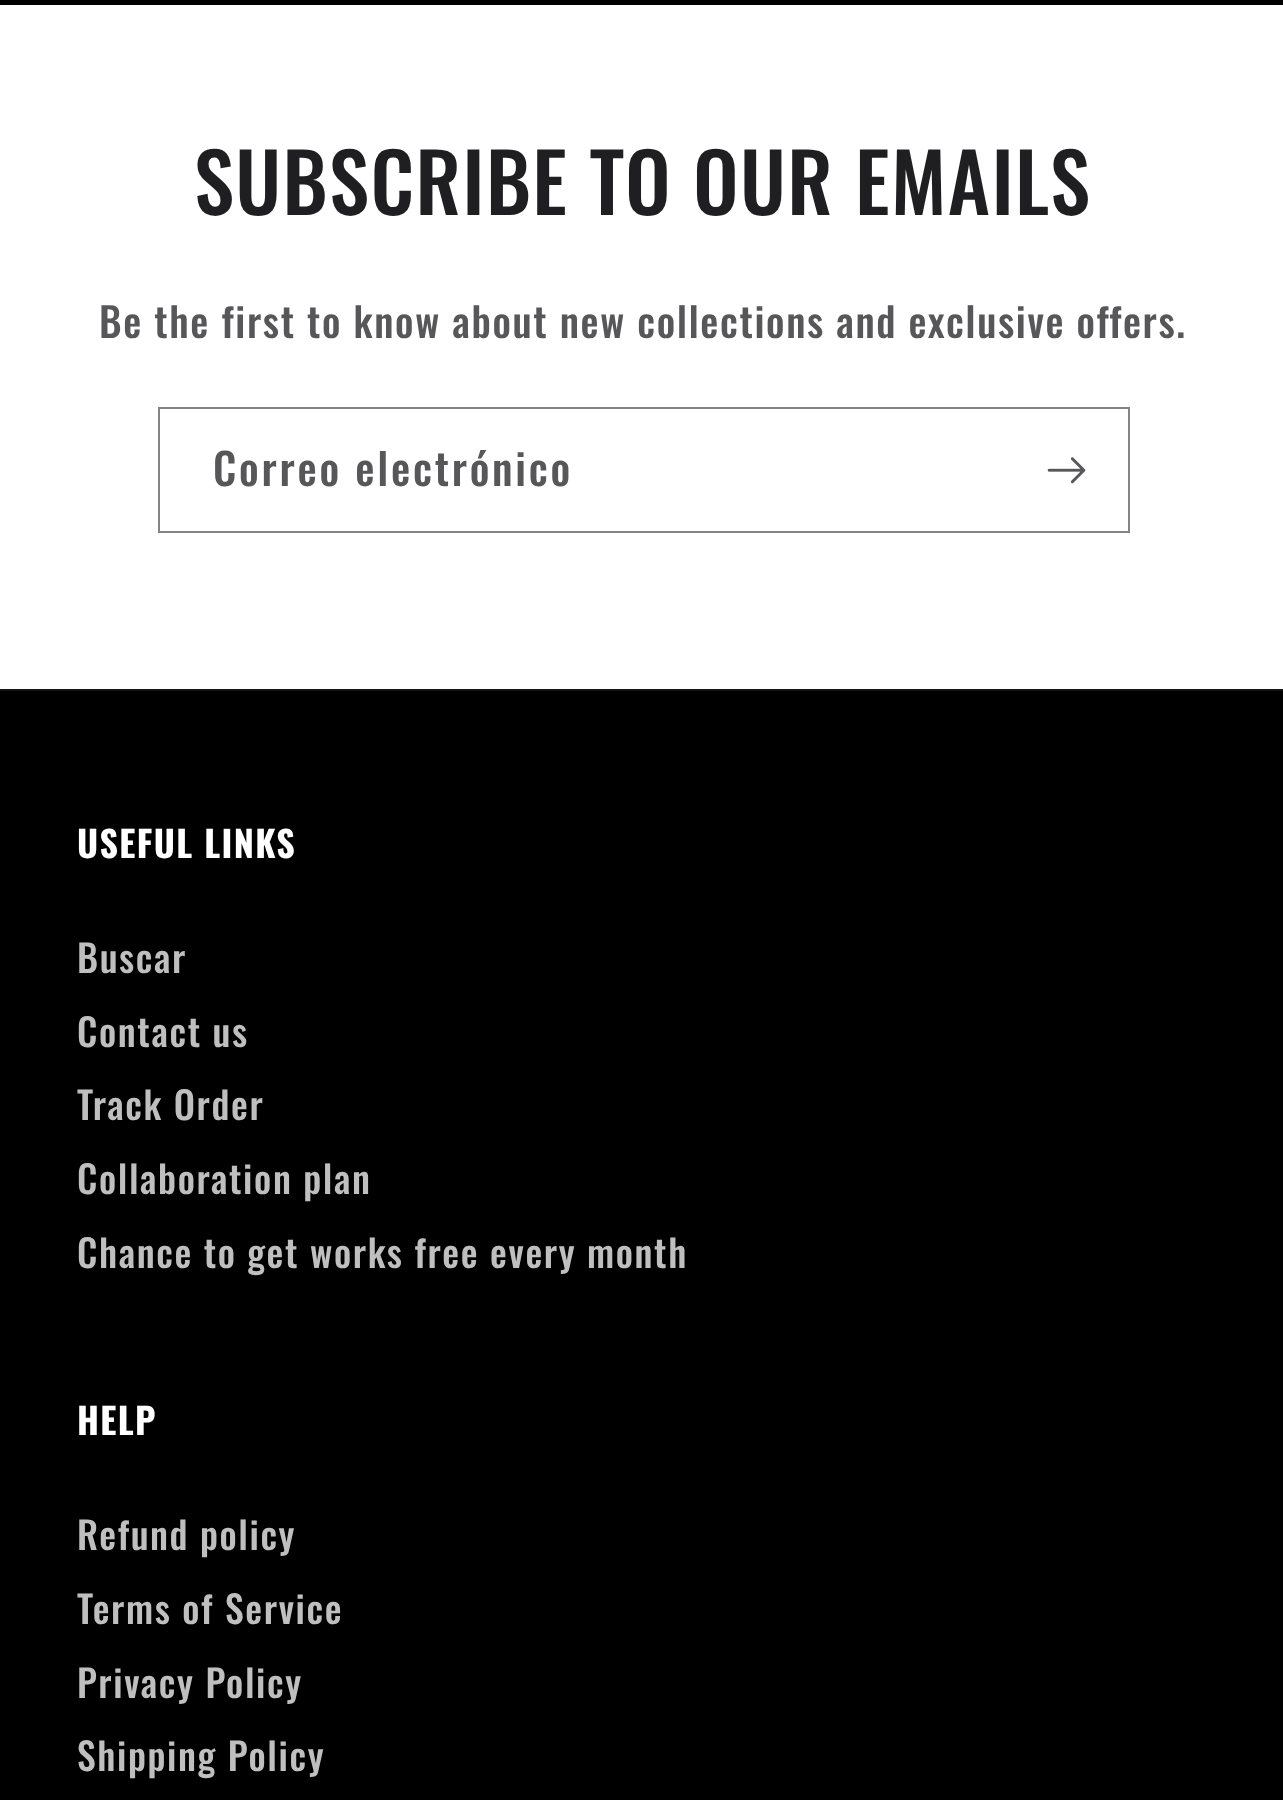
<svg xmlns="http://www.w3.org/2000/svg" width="1283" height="1800">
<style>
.a{font:500 81px Oswald;letter-spacing:1.35px;fill:#1f1f21}
.b{font:500 40.5px Oswald;letter-spacing:1.62px;fill:#575759}
.c{font:500 43.25px Oswald;letter-spacing:2.75px;fill:#575759}
.d{font:bold 36px Oswald;letter-spacing:1.35px;fill:#fff}
.e{font:500 37.75px Oswald;letter-spacing:1.62px;fill:#bfbfbf}
</style>
<rect width="100%" height="100%" fill="#000"/>
<path fill="#fff" d="M0 5h1283v684H0z"/>
<path fill="none" stroke="#848485" stroke-width="2" d="M159 408h970v124H159z"/>
<image href="1.png" x="1047" y="457" width="39" height="27"/>
<path fill="#141414" d="M0 689h1283v2H0z"/>
<text class="a" x="194" y="215">SUBSCRIBE TO OUR EMAILS</text>
<text class="b" x="99" y="338">Be the first to know about new collections and exclusive offers.</text>
<text class="c" x="213" y="486">Correo electrónico</text>
<text class="d" x="77" y="858">USEFUL LINKS</text>
<text class="e" x="77" y="973">Buscar</text>
<text class="e" x="77" y="1047">Contact us</text>
<text class="e" x="77" y="1120">Track Order</text>
<text class="e" x="77" y="1194">Collaboration plan</text>
<text class="e" x="77" y="1268">Chance to get works free every month</text>
<text class="d" x="77" y="1435">HELP</text>
<text class="e" x="77" y="1550">Refund policy</text>
<text class="e" x="77" y="1624">Terms of Service</text>
<text class="e" x="77" y="1698">Privacy Policy</text>
<text class="e" x="77" y="1771">Shipping Policy</text>
</svg>
